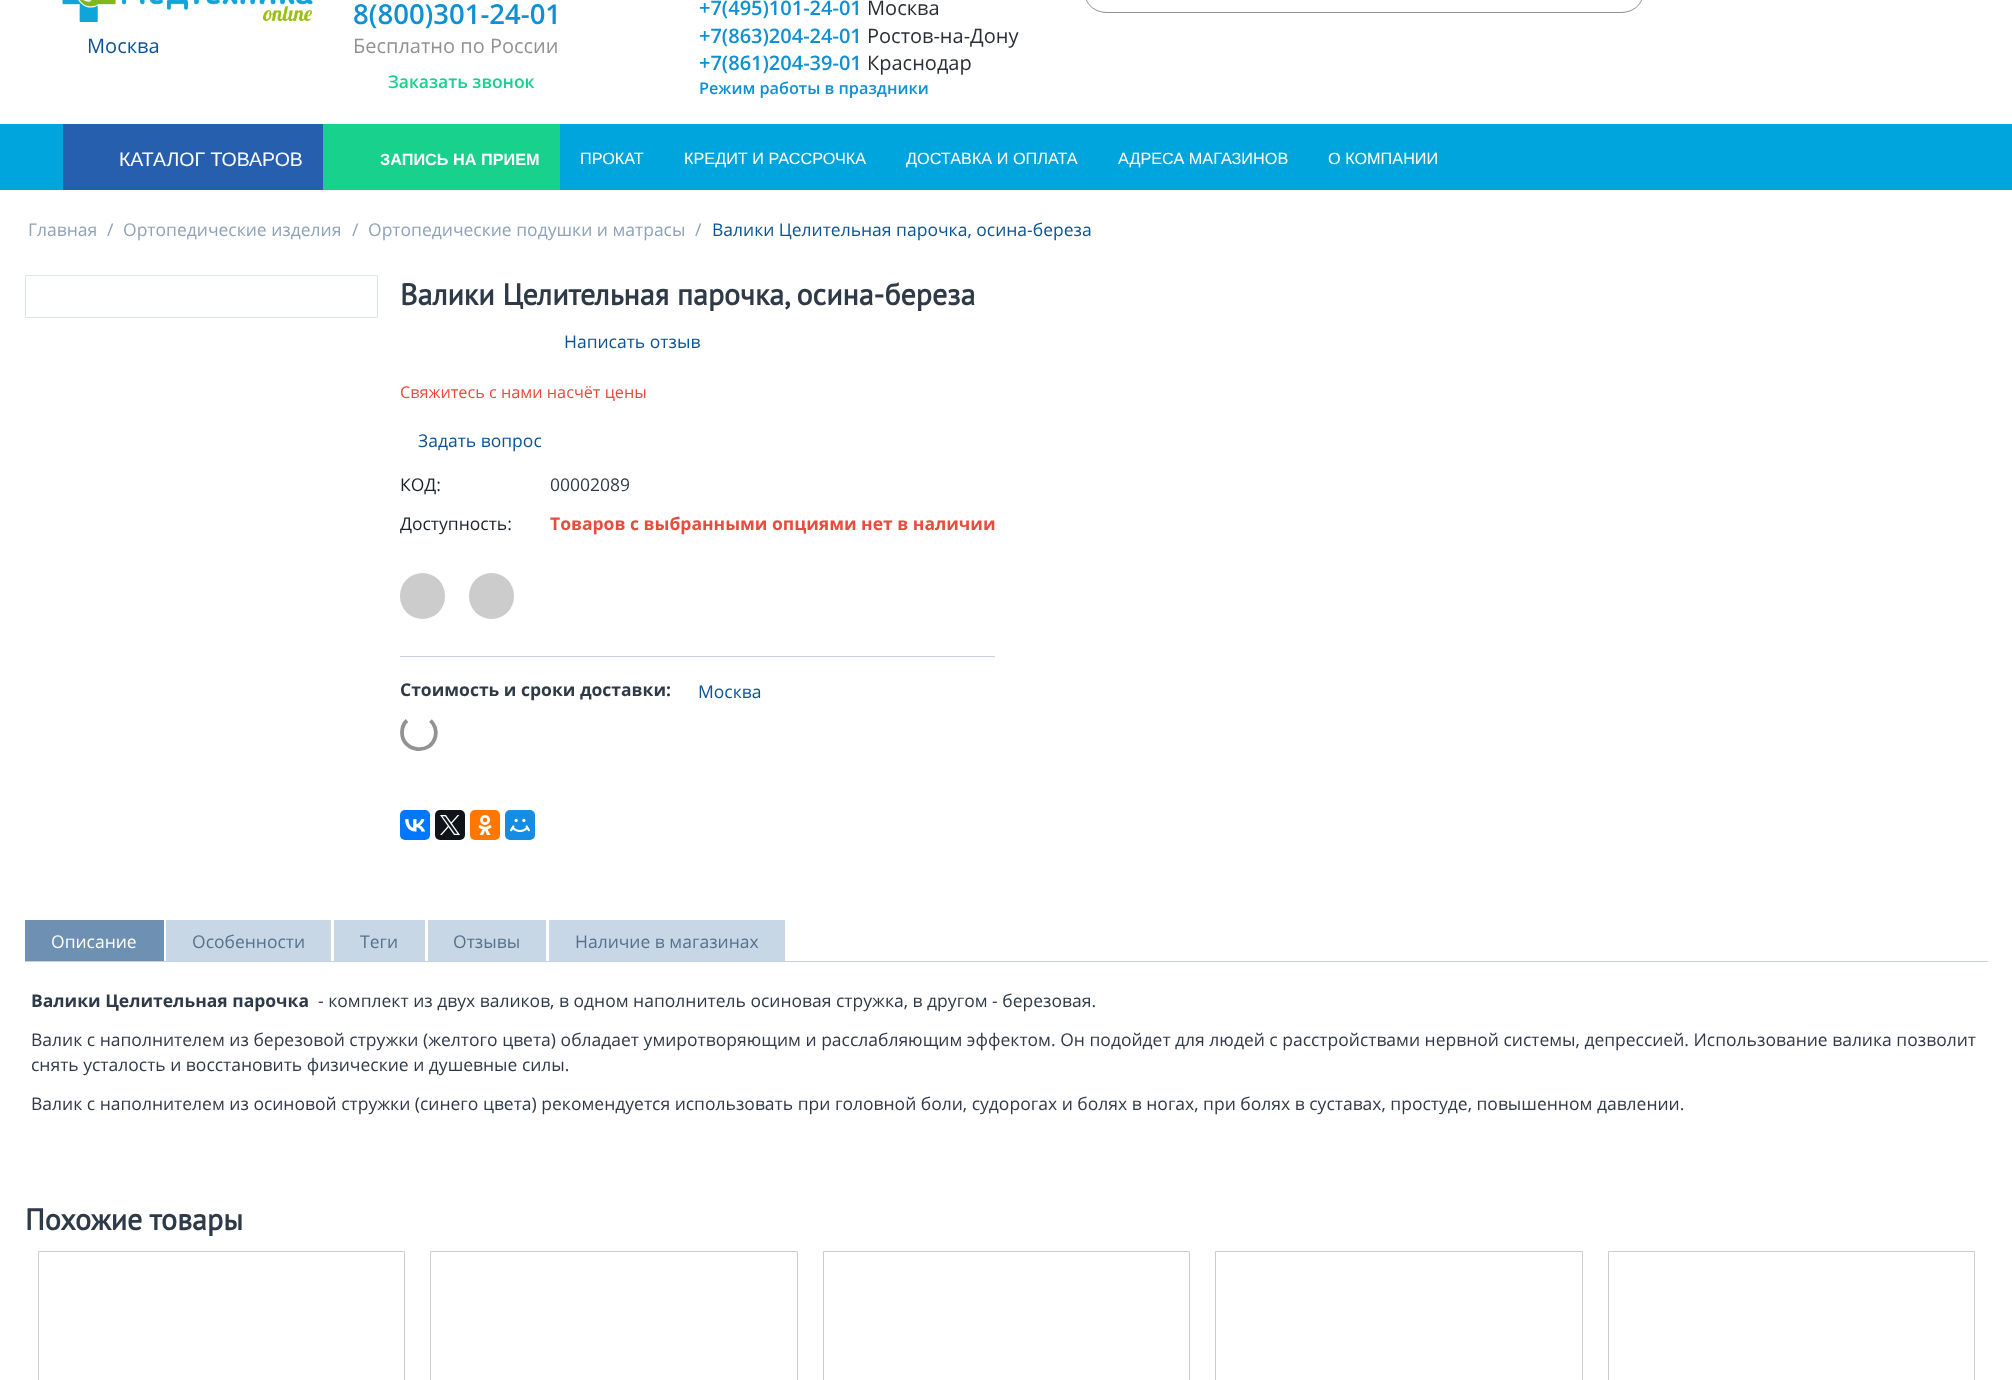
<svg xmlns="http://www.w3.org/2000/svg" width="2012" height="1380">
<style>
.a{font:20px Open Sans;fill:#0b5394}
.b{font:600 27.5px Open Sans;fill:#0e90d2}
.c{font:20px Open Sans;fill:#929292}
.d{font:600 17.5px Open Sans;fill:#16d28d}
.e{font:600 20px Open Sans;fill:#0e90d2}
.f{font:20px Open Sans;fill:#2a2f35}
.g{font:600 16.25px Open Sans;fill:#0e90d2}
.h{font:19.5px Liberation Sans;fill:#fff}
.i{font:bold 16.25px Liberation Sans;fill:#fff}
.j{font:16.25px Liberation Sans;fill:#fff}
.k{font:17.5px Open Sans;fill:#8ca3ba}
.l{font:17.5px Open Sans;fill:#0b5394}
.m{font:bold 30px PT Sans;fill:#2e3a47}
.n{font:16.25px Open Sans;fill:#e74c3c}
.o{font:17.5px Open Sans;fill:#1a2128}
.p{font:17.5px Open Sans;fill:#2e3a47}
.q{font:bold 17.5px Open Sans;fill:#e74c3c}
.r{font:bold 17.5px Open Sans;fill:#2e3a47}
.s{font:17.5px Open Sans;fill:#fff}
.t{font:17.5px Open Sans;fill:#56718c}
</style>
<rect width="100%" height="100%" fill="#fff"/>
<rect fill="none" stroke="#929292" x="1085.5" y="-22.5" width="557" height="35" rx="21.5"/>
<image href="1.png" x="62" y="0" width="251" height="22"/>
<path fill="#00a5dd" d="M0 124h2012v66H0z"/>
<path fill="#275faf" d="M63 124h260v66H63z"/>
<path fill="#17d18d" d="M323 124h237v66H323z"/>
<path fill="none" stroke="#dce3ea" d="M25.5 275.5h352v42H25.5z"/>
<rect fill="#ccc" x="400" y="573" width="45" height="46" rx="22.5"/>
<rect fill="#ccc" x="469" y="573" width="45" height="46" rx="22.5"/>
<path fill="#c6d1dd" d="M400 656h595v1H400z"/>
<path fill="none" stroke="#929292" stroke-width="3.8" d="M430.5 720.5c4 4 6 10 5 15.5c-4 19.5-33.5 16.5-33.5-3.5c0-4.5 1.5-9 5-12"/>
<rect fill="#07f" x="400" y="810" width="30" height="30" rx="5"/>
<image href="2.png" x="405" y="819" width="20" height="13"/>
<rect fill="#0f1419" x="435" y="810" width="30" height="30" rx="5"/>
<image href="3.png" x="440" y="815" width="20" height="20"/>
<rect fill="#f70" x="470" y="810" width="30" height="30" rx="5"/>
<image href="4.png" x="478" y="815" width="14" height="20"/>
<rect fill="#168de2" x="505" y="810" width="30" height="30" rx="5"/>
<image href="5.png" x="510" y="818" width="20" height="15"/>
<path fill="#c6d1dd" d="M25 961h1963v1H25z"/>
<path fill="#6d90b3" d="M25 920h139v41H25z"/>
<path fill="#c8d7e6" d="M166 920h165v41H166z"/>
<path fill="#c8d7e6" d="M334 920h91v41H334z"/>
<path fill="#c8d7e6" d="M428 920h118v41H428z"/>
<path fill="#c8d7e6" d="M549 920h236v41H549z"/>
<path fill="none" stroke="#ccc" d="M38.5 1251.5h366v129H38.5z"/>
<path fill="none" stroke="#ccc" d="M430.5 1251.5h367v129H430.5z"/>
<path fill="none" stroke="#ccc" d="M823.5 1251.5h366v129H823.5z"/>
<path fill="none" stroke="#ccc" d="M1215.5 1251.5h367v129H1215.5z"/>
<path fill="none" stroke="#ccc" d="M1608.5 1251.5h366v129H1608.5z"/>
<text class="a" x="87" y="53">Москва</text>
<text class="b" x="353" y="24">8(800)301-24-01</text>
<text class="c" x="353" y="53">Бесплатно по России</text>
<text class="d" x="388" y="88">Заказать звонок</text>
<text class="e" x="699" y="15">+7(495)101-24-01</text>
<text class="f" x="867" y="15">Москва</text>
<text class="e" x="699" y="43">+7(863)204-24-01</text>
<text class="f" x="867" y="43">Ростов-на-Дону</text>
<text class="e" x="699" y="70">+7(861)204-39-01</text>
<text class="f" x="867" y="70">Краснодар</text>
<text class="g" x="699" y="94">Режим работы в праздники</text>
<text class="h" x="119" y="166">КАТАЛОГ ТОВАРОВ</text>
<text class="i" x="380" y="165">ЗАПИСЬ НА ПРИЕМ</text>
<text class="j" x="580" y="164">ПРОКАТ</text>
<text class="j" x="684" y="164">КРЕДИТ И РАССРОЧКА</text>
<text class="j" x="906" y="164">ДОСТАВКА И ОПЛАТА</text>
<text class="j" x="1118" y="164">АДРЕСА МАГАЗИНОВ</text>
<text class="j" x="1328" y="164">О КОМПАНИИ</text>
<text class="k" x="28" y="236">Главная</text>
<text class="k" x="107" y="236">/</text>
<text class="k" x="123" y="236">Ортопедические изделия</text>
<text class="k" x="352" y="236">/</text>
<text class="k" x="368" y="236">Ортопедические подушки и матрасы</text>
<text class="k" x="695" y="236">/</text>
<text class="l" x="712" y="236">Валики Целительная парочка, осина-береза</text>
<text class="m" x="400" y="305">Валики Целительная парочка, осина-береза</text>
<text class="l" x="564" y="348">Написать отзыв</text>
<text class="n" x="400" y="398">Свяжитесь с нами насчёт цены</text>
<text class="l" x="418" y="447">Задать вопрос</text>
<text class="o" x="400" y="491">КОД:</text>
<text class="p" x="550" y="491">00002089</text>
<text class="o" x="400" y="530">Доступность:</text>
<text class="q" x="550" y="530">Товаров с выбранными опциями нет в наличии</text>
<text class="r" x="400" y="696">Стоимость и сроки доставки:</text>
<text class="l" x="698" y="698">Москва</text>
<text class="s" x="51" y="948">Описание</text>
<text class="t" x="192" y="948">Особенности</text>
<text class="t" x="360" y="948">Теги</text>
<text class="t" x="453" y="948">Отзывы</text>
<text class="t" x="575" y="948">Наличие в магазинах</text>
<text class="r" x="31" y="1007">Валики Целительная парочка</text>
<text class="p" x="318" y="1007">- комплект из двух валиков, в одном наполнитель осиновая стружка, в другом - березовая.</text>
<text class="p" x="31" y="1046">Валик с наполнителем из березовой стружки (желтого цвета) обладает умиротворяющим и расслабляющим эффектом. Он подойдет для людей с расстройствами нервной системы, депрессией. Использование валика позволит</text>
<text class="p" x="31" y="1071">снять усталость и восстановить физические и душевные силы.</text>
<text class="p" x="31" y="1110">Валик с наполнителем из осиновой стружки (синего цвета) рекомендуется использовать при головной боли, судорогах и болях в ногах, при болях в суставах, простуде, повышенном давлении.</text>
<text class="m" x="25" y="1230">Похожие товары</text>
</svg>
